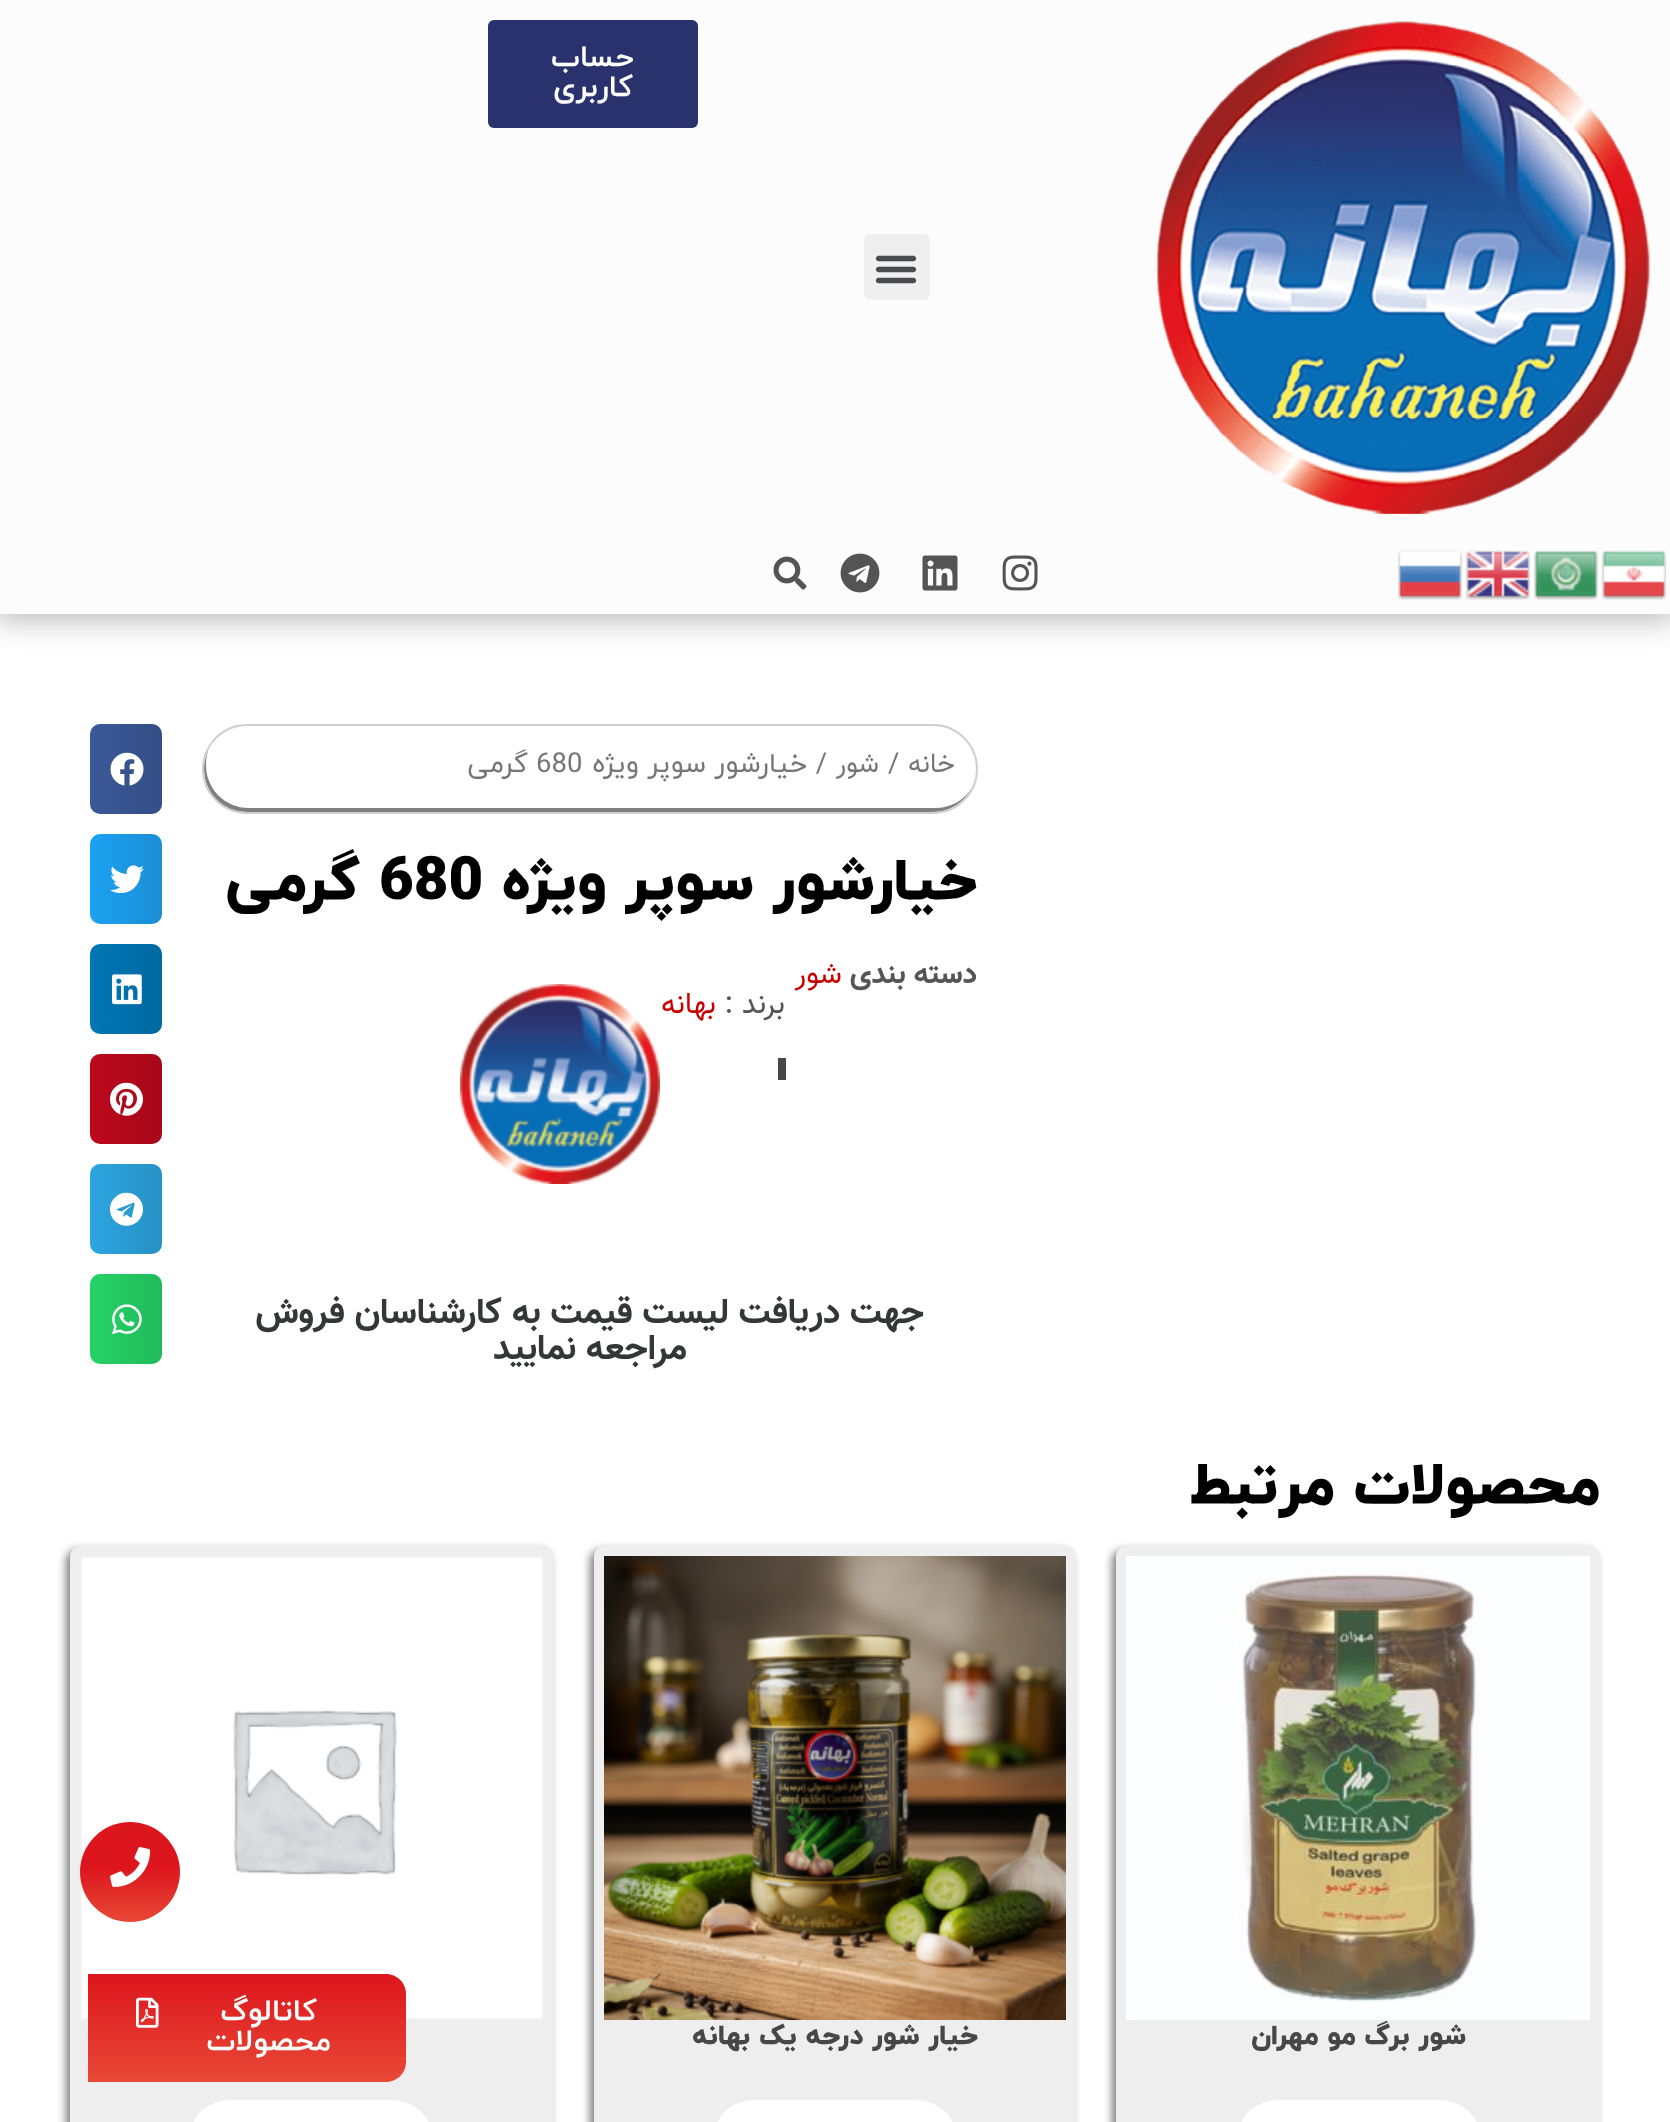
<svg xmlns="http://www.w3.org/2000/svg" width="1670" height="2122">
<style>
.a{font:bold 30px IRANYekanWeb;direction:rtl;fill:#fff}
.b{font:27.5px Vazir;direction:rtl;fill:#767676}
.c{font:27.5px IRANYekanWeb;fill:#767676}
.d{font:27.5px IRANYekanWeb;direction:rtl;fill:#767676}
.e{font:800 60px IRANYekanWeb;direction:rtl;fill:#000}
.f{font:800 60px IRANYekanWeb;fill:#000}
.g{font:bold 30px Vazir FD;direction:rtl;fill:#555}
.h{font:30px Vazir;direction:rtl;fill:#c80000}
.i{font:30px Vazir FD;direction:rtl;fill:#555}
.j{font:bold 36px Vazir;direction:rtl;fill:#343637}
.k{font:800 28px IRANYekanWeb;direction:rtl;fill:#474747}
.l{font:bold 30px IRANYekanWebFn;direction:rtl;fill:#fff}
</style>
<defs>
<linearGradient id="g1" gradientUnits="userSpaceOnUse" x1="162" y1="769" x2="90" y2="769"><stop offset="0" stop-color="#000" stop-opacity="0.12"/><stop offset="1" stop-color="#000" stop-opacity="0"/></linearGradient>
<linearGradient id="g2" gradientUnits="userSpaceOnUse" x1="162" y1="879" x2="90" y2="879"><stop offset="0" stop-color="#000" stop-opacity="0.12"/><stop offset="1" stop-color="#000" stop-opacity="0"/></linearGradient>
<linearGradient id="g3" gradientUnits="userSpaceOnUse" x1="162" y1="989" x2="90" y2="989"><stop offset="0" stop-color="#000" stop-opacity="0.12"/><stop offset="1" stop-color="#000" stop-opacity="0"/></linearGradient>
<linearGradient id="g4" gradientUnits="userSpaceOnUse" x1="162" y1="1099" x2="90" y2="1099"><stop offset="0" stop-color="#000" stop-opacity="0.12"/><stop offset="1" stop-color="#000" stop-opacity="0"/></linearGradient>
<linearGradient id="g5" gradientUnits="userSpaceOnUse" x1="162" y1="1209" x2="90" y2="1209"><stop offset="0" stop-color="#000" stop-opacity="0.12"/><stop offset="1" stop-color="#000" stop-opacity="0"/></linearGradient>
<linearGradient id="g6" gradientUnits="userSpaceOnUse" x1="162" y1="1319" x2="90" y2="1319"><stop offset="0" stop-color="#000" stop-opacity="0.12"/><stop offset="1" stop-color="#000" stop-opacity="0"/></linearGradient>
<linearGradient id="g7" gradientUnits="userSpaceOnUse" x1="130" y1="1822" x2="130" y2="1922"><stop offset="0.45" stop-color="#dd151d"/><stop offset="1" stop-color="#e84936"/></linearGradient>
<linearGradient id="g8" gradientUnits="userSpaceOnUse" x1="247" y1="1974" x2="247" y2="2082"><stop offset="0" stop-color="#dd151d"/><stop offset="1" stop-color="#e84936"/></linearGradient>
</defs>
<rect width="100%" height="100%" fill="#fff"/>
<path fill="#77747480" filter="blur(15px)" d="M-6 -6h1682v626H-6z"/>
<path fill="#fcfcfc" d="M0 0h1670v614H0z"/>
<image href="1.png" x="1156" y="21" width="494" height="493"/>
<rect fill="#2a326e" x="488" y="20" width="210" height="108" rx="6"/>
<rect fill="#efefef" x="864" y="234" width="66" height="66" rx="6"/>
<image href="2.png" x="875" y="255" width="42" height="29"/>
<image href="3.png" x="1602" y="550" width="64" height="50"/>
<image href="4.png" x="1534" y="550" width="64" height="50"/>
<image href="5.png" x="1466" y="550" width="64" height="50"/>
<image href="6.png" x="1398" y="550" width="64" height="50"/>
<image href="7.png" x="1002" y="555" width="36" height="36"/>
<image href="8.png" x="922" y="555" width="36" height="36"/>
<image href="9.png" x="840" y="553" width="40" height="40"/>
<image href="10.png" x="773" y="556" width="34" height="34"/>
<path fill="#808080" d="M209 748c-3 7-5 14-5 21c0 24 19 43 43 43h686c17 0 32-10 39-25c-7 13-21 21-37 21h-686c-24 0-43-19-43-43c0-6 1-11 3-17z"/>
<rect fill="none" stroke="#d3cece" stroke-width="2" x="203" y="725" width="774" height="88" rx="44"/>
<path fill="#494747" d="M778 1058h8v22H778z"/>
<image href="11.png" x="460" y="984" width="200" height="200"/>
<rect fill="#3b5998" x="90" y="724" width="72" height="90" rx="10"/>
<rect fill="url(#g1)" x="90" y="724" width="72" height="90" rx="10"/>
<image href="12.png" x="110" y="752" width="34" height="34"/>
<rect fill="#1da1f2" x="90" y="834" width="72" height="90" rx="10"/>
<rect fill="url(#g2)" x="90" y="834" width="72" height="90" rx="10"/>
<image href="13.png" x="110" y="865" width="34" height="29"/>
<rect fill="#0077b5" x="90" y="944" width="72" height="90" rx="10"/>
<rect fill="url(#g3)" x="90" y="944" width="72" height="90" rx="10"/>
<image href="14.png" x="112" y="974" width="30" height="31"/>
<rect fill="#bd081c" x="90" y="1054" width="72" height="90" rx="10"/>
<rect fill="url(#g4)" x="90" y="1054" width="72" height="90" rx="10"/>
<image href="15.png" x="110" y="1082" width="33" height="34"/>
<rect fill="#2ca5e0" x="90" y="1164" width="72" height="90" rx="10"/>
<rect fill="url(#g5)" x="90" y="1164" width="72" height="90" rx="10"/>
<image href="16.png" x="110" y="1192" width="33" height="34"/>
<rect fill="#25d366" x="90" y="1274" width="72" height="90" rx="10"/>
<rect fill="url(#g6)" x="90" y="1274" width="72" height="90" rx="10"/>
<image href="17.png" x="112" y="1304" width="30" height="31"/>
<rect fill="#00000080" filter="blur(4px)" x="1112" y="1550" width="484" height="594" rx="10"/>
<rect fill="#efeeee" x="1116" y="1546" width="484" height="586" rx="10"/>
<image href="18.png" x="1126" y="1556" width="464" height="464"/>
<rect fill="#fff" x="1240" y="2100" width="238" height="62" rx="40"/>
<rect fill="#00000080" filter="blur(4px)" x="590" y="1550" width="482" height="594" rx="10"/>
<rect fill="#efeeee" x="594" y="1546" width="482" height="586" rx="10"/>
<image href="19.png" x="604" y="1556" width="462" height="464"/>
<rect fill="#fff" x="716" y="2100" width="238" height="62" rx="40"/>
<rect fill="#00000080" filter="blur(4px)" x="66" y="1550" width="484" height="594" rx="10"/>
<rect fill="#efeeee" x="70" y="1546" width="484" height="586" rx="10"/>
<path fill="none" stroke="#f2f2f2" stroke-width="2" d="M81 1557h462v462H81z"/>
<image href="20.png" x="82" y="1558" width="460" height="460"/>
<rect fill="#fff" x="192" y="2100" width="238" height="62" rx="40"/>
<circle fill="url(#g7)" cx="130" cy="1872" r="50"/>
<image href="21.png" x="110" y="1847" width="41" height="40"/>
<path fill="url(#g8)" d="M88 1974h298c11 0 20 9 20 20v68c0 11-9 20-20 20h-298z"/>
<image href="22.png" x="136" y="1997" width="23" height="31"/>
<text class="a" x="634" y="66">حساب</text>
<text class="a" x="633" y="96">کاربری</text>
<text class="b" x="955" y="772">خانه</text>
<text class="c" x="888" y="772">/</text>
<text class="b" x="879" y="772">شور</text>
<text class="d" x="827" y="772">/ خیارشور سوپر ویژه</text>
<text class="c" x="536" y="772">680</text>
<text class="d" x="528" y="772">گرمی</text>
<text class="e" x="977" y="899">خیارشور سوپر ویژه</text>
<text class="f" x="379" y="899">680</text>
<text class="e" x="360" y="899">گرمی</text>
<text class="g" x="977" y="983">دسته بندی</text>
<text class="h" x="842" y="983">شور</text>
<text class="i" x="785" y="1013">برند :</text>
<text class="h" x="716" y="1013">بهانه</text>
<text class="j" x="924" y="1323">جهت دریافت لیست قیمت به کارشناسان فروش</text>
<text class="j" x="687" y="1359">مراجعه نمایید</text>
<text class="e" x="1600" y="1503">محصولات مرتبط</text>
<text class="k" x="1466" y="2044">شور برگ مو مهران</text>
<text class="k" x="978" y="2044">خیار شور درجه یک بهانه</text>
<text class="l" x="317" y="2020">کاتالوگ</text>
<text class="l" x="331" y="2050">محصولات</text>
</svg>
